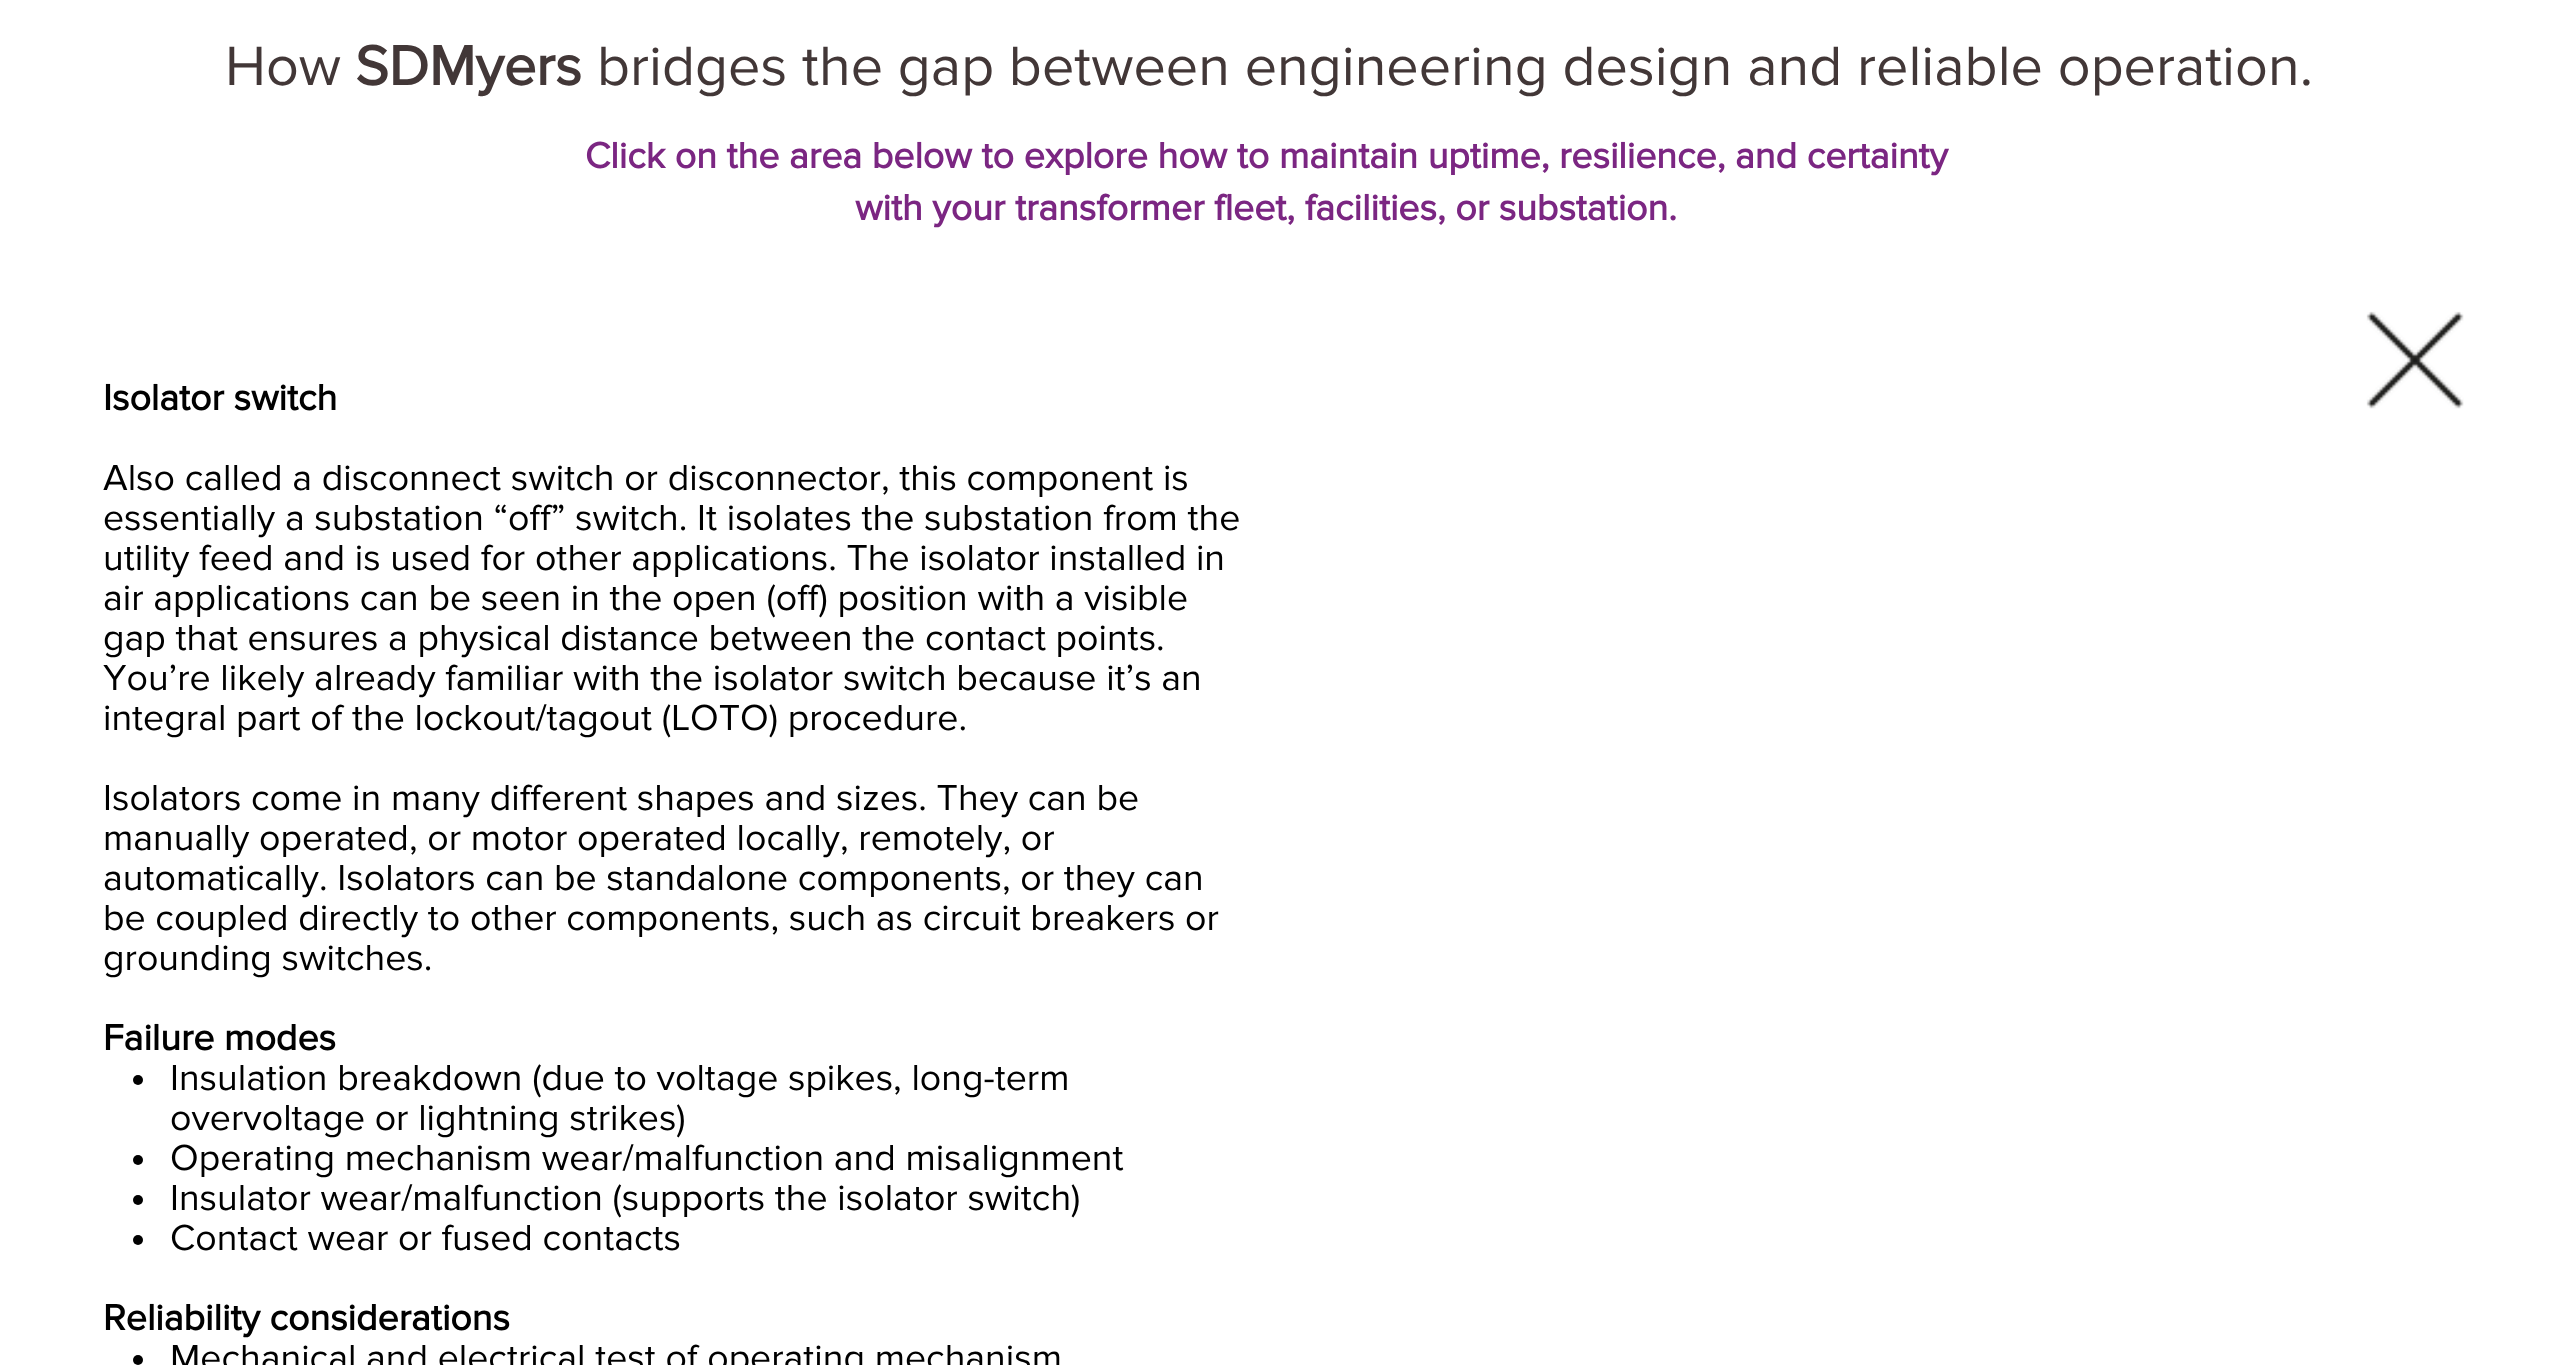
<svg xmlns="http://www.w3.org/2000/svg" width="2558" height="1365">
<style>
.a{font:57.5px 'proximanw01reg';fill:#423737}
.b{font:bold 57.5px 'proximanw01reg';fill:#423737}
.c{font:bold 37.5px 'proximanw01reg';fill:#7b2682}
.d{font:bold 37.5px 'proximanw01reg';fill:#000}
.e{font:37.5px 'proximanw01reg';fill:#000}
</style>
<rect width="100%" height="100%" fill="#fff"/>
<image href="1.png" x="2366" y="311" width="98" height="98"/>
<circle fill="#000" cx="138" cy="1080" r="5"/>
<circle fill="#000" cx="138" cy="1160" r="5"/>
<circle fill="#000" cx="138" cy="1200" r="5"/>
<circle fill="#000" cx="138" cy="1240" r="5"/>
<circle fill="#000" cx="138" cy="1360" r="5"/>
<text class="a" x="225" y="85">How</text>
<text class="b" x="355" y="85">SDMyers</text>
<text class="a" x="597" y="85">bridges the gap between engineering design and reliable operation.</text>
<text class="c" x="585" y="168">Click on the area below to explore how to maintain uptime, resilience, and certainty</text>
<text class="c" x="855" y="220">with your transformer fleet, facilities, or substation.</text>
<text class="d" x="103" y="410">Isolator switch</text>
<text class="e" x="103" y="490">Also called a disconnect switch or disconnector, this component is</text>
<text class="e" x="103" y="530">essentially a substation “off” switch. It isolates the substation from the</text>
<text class="e" x="103" y="570">utility feed and is used for other applications. The isolator installed in</text>
<text class="e" x="103" y="610">air applications can be seen in the open (off) position with a visible</text>
<text class="e" x="103" y="650">gap that ensures a physical distance between the contact points.</text>
<text class="e" x="103" y="690">You’re likely already familiar with the isolator switch because it’s an</text>
<text class="e" x="103" y="730">integral part of the lockout/tagout (LOTO) procedure.</text>
<text class="e" x="103" y="810">Isolators come in many different shapes and sizes. They can be</text>
<text class="e" x="103" y="850">manually operated, or motor operated locally, remotely, or</text>
<text class="e" x="103" y="890">automatically. Isolators can be standalone components, or they can</text>
<text class="e" x="103" y="930">be coupled directly to other components, such as circuit breakers or</text>
<text class="e" x="103" y="970">grounding switches.</text>
<text class="d" x="103" y="1050">Failure modes</text>
<text class="e" x="170" y="1090">Insulation breakdown (due to voltage spikes, long-term</text>
<text class="e" x="170" y="1130">overvoltage or lightning strikes)</text>
<text class="e" x="170" y="1170">Operating mechanism wear/malfunction and misalignment</text>
<text class="e" x="170" y="1210">Insulator wear/malfunction (supports the isolator switch)</text>
<text class="e" x="170" y="1250">Contact wear or fused contacts</text>
<text class="d" x="103" y="1330">Reliability considerations</text>
<text class="e" x="170" y="1370">Mechanical and electrical test of operating mechanism</text>
</svg>
